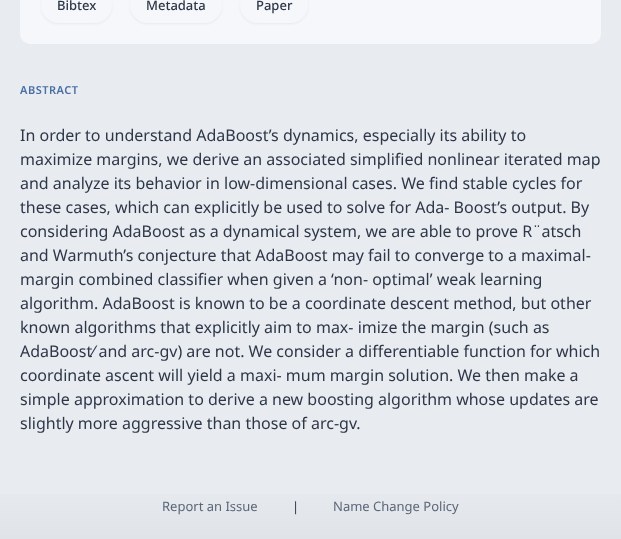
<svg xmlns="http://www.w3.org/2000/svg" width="621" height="539">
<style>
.a{font:500 13px Noto Sans;fill:#2d3748}
.b{font:600 11px Noto Sans;letter-spacing:0.5px;fill:#4a6fa5}
.c{font:16px Noto Sans;fill:#2d3748}
.d{font:13px Noto Sans;fill:#5a6778}
.e{font:13px Noto Sans;fill:#2d3748}
</style>
<defs>
<linearGradient id="g1" gradientUnits="userSpaceOnUse" x1="311" y1="539" x2="311" y2="474"><stop offset="0" stop-color="#e0e3e8"/><stop offset="1" stop-color="#e8ebf0"/></linearGradient>
</defs>
<rect width="100%" height="100%" fill="#e8ebf0"/>
<rect fill="#f5f7fa" x="20" y="-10" width="581" height="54" rx="10"/>
<rect fill="#0000000f" filter="blur(1px)" x="41" y="-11" width="71" height="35" rx="17.5"/>
<rect fill="#f5f7fa" x="41" y="-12" width="71" height="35" rx="17.5"/>
<rect fill="#0000000f" filter="blur(1px)" x="130" y="-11" width="92" height="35" rx="17.5"/>
<rect fill="#f5f7fa" x="130" y="-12" width="92" height="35" rx="17.5"/>
<rect fill="#0000000f" filter="blur(1px)" x="240" y="-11" width="68" height="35" rx="17.5"/>
<rect fill="#f5f7fa" x="240" y="-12" width="68" height="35" rx="17.5"/>
<path fill="url(#g1)" d="M0 494h621v45H0z"/>
<text class="a" x="57" y="10">Bibtex</text>
<text class="a" x="146" y="10">Metadata</text>
<text class="a" x="256" y="10">Paper</text>
<text class="b" x="20" y="94">ABSTRACT</text>
<text class="c" x="20" y="141">In order to understand AdaBoost’s dynamics, especially its ability to</text>
<text class="c" x="20" y="165">maximize margins, we derive an associated simpliﬁed nonlinear iterated map</text>
<text class="c" x="20" y="189">and analyze its behavior in low-dimensional cases. We ﬁnd stable cycles for</text>
<text class="c" x="20" y="213">these cases, which can explicitly be used to solve for Ada- Boost’s output. By</text>
<text class="c" x="20" y="237">considering AdaBoost as a dynamical system, we are able to prove R¨atsch</text>
<text class="c" x="20" y="261">and Warmuth’s conjecture that AdaBoost may fail to converge to a maximal-</text>
<text class="c" x="20" y="285">margin combined classiﬁer when given a ‘non- optimal’ weak learning</text>
<text class="c" x="20" y="309">algorithm. AdaBoost is known to be a coordinate descent method, but other</text>
<text class="c" x="20" y="333">known algorithms that explicitly aim to max- imize the margin (such as</text>
<text class="c" x="20" y="357">AdaBoost⁄ and arc-gv) are not. We consider a differentiable function for which</text>
<text class="c" x="20" y="381">coordinate ascent will yield a maxi- mum margin solution. We then make a</text>
<text class="c" x="20" y="405">simple approximation to derive a new boosting algorithm whose updates are</text>
<text class="c" x="20" y="429">slightly more aggressive than those of arc-gv.</text>
<text class="d" x="162" y="511">Report an Issue</text>
<text class="e" x="292" y="511">|</text>
<text class="d" x="333" y="511">Name Change Policy</text>
</svg>
